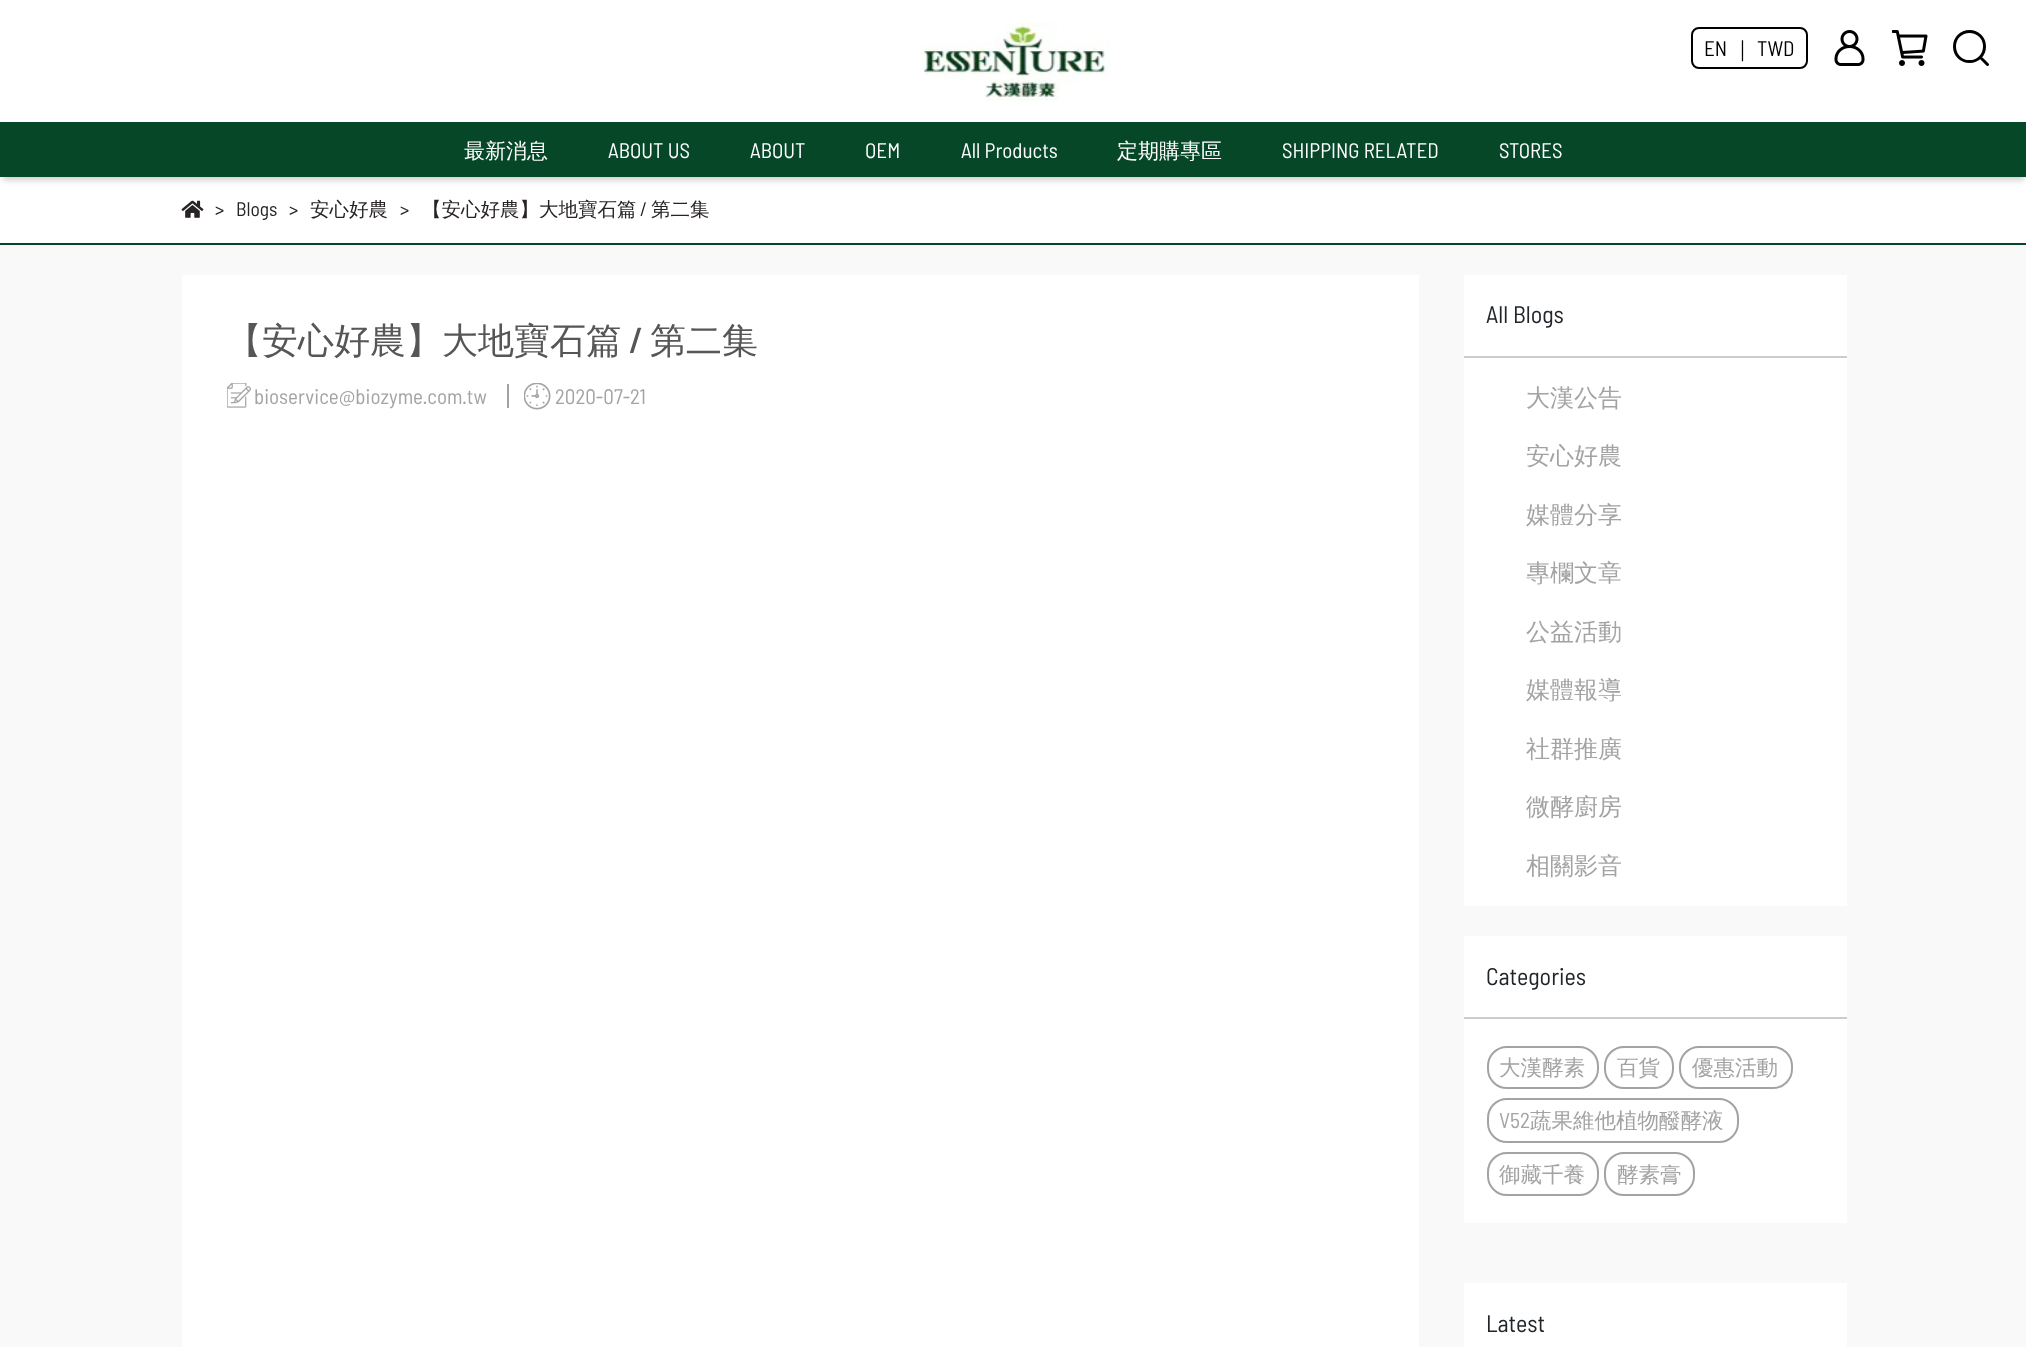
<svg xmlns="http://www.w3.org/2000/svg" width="2026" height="1347">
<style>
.a{font:21px Barlow Semi Condensed;fill:#000}
.b{font:500 21px WenQuanYi Zen Hei;fill:#000}
.c{font:500 21px WenQuanYi Zen Hei;fill:#fff}
.d{font:21px Barlow Semi Condensed;fill:#fff}
.e{font:19.5px Barlow Semi Condensed;fill:#292424}
.f{font:500 19.5px WenQuanYi Zen Hei;fill:#292424}
.g{font:500 36px WenQuanYi Zen Hei;fill:#565656}
.h{font:500 36px Barlow Semi Condensed;fill:#565656}
.i{font:21px Barlow Semi Condensed;fill:#a3a3a3}
.j{font:24px Barlow Semi Condensed;fill:#212529}
.k{font:500 24px WenQuanYi Zen Hei;fill:#a3a3a3}
.l{font:500 21.5px WenQuanYi Zen Hei;fill:#a3a3a3}
.m{font:21.5px Barlow Semi Condensed;fill:#a3a3a3}
</style>
<rect width="100%" height="100%" fill="#fff"/>
<image href="1.png" x="921" y="22" width="189" height="79"/>
<rect fill="none" stroke="#000" stroke-width="2" x="1692" y="28" width="115" height="40" rx="7"/>
<image href="2.png" x="1834" y="30" width="31" height="36"/>
<image href="3.png" x="1892" y="30" width="36" height="36"/>
<path fill="none" stroke="#000" stroke-width="3" stroke-linecap="round" stroke-linejoin="round" d="M1984.5 46.5c0 8.5-6.5 15-15 15c-8.5 0-15-6.5-15-15c0-8.5 6.5-15 15-15c8.5 0 15 6.5 15 15zm-3 12l6 6"/>
<path fill="#00000033" filter="blur(3px)" d="M3 131h2021v49H3z"/>
<path fill="#054726" d="M0 122h2026v55H0z"/>
<path fill="#054726" d="M0 243h2026v2H0z"/>
<image href="4.png" x="181" y="200" width="23" height="18"/>
<path fill="#f9f9f9" d="M0 245h2026v1102H0z"/>
<path fill="#fff" d="M182 275h1237v1072H182z"/>
<image href="5.png" x="227" y="383" width="24" height="25"/>
<path fill="#a3a3a3" d="M507 384h2v24H507z"/>
<image href="6.png" x="524" y="383" width="27" height="27"/>
<path fill="#fff" d="M1464 275h383v631H1464z"/>
<path fill="#ccc" d="M1464 356h383v2H1464z"/>
<path fill="#fff" d="M1464 936h383v287H1464z"/>
<path fill="#ccc" d="M1464 1017h383v2H1464z"/>
<rect fill="none" stroke="#a3a3a3" stroke-width="2" x="1488" y="1047" width="110" height="41" rx="19"/>
<rect fill="none" stroke="#a3a3a3" stroke-width="2" x="1605" y="1047" width="68" height="41" rx="19"/>
<rect fill="none" stroke="#a3a3a3" stroke-width="2" x="1680" y="1047" width="112" height="41" rx="19"/>
<rect fill="none" stroke="#a3a3a3" stroke-width="2" x="1488" y="1099" width="250" height="43" rx="19"/>
<rect fill="none" stroke="#a3a3a3" stroke-width="2" x="1488" y="1153" width="110" height="42" rx="19"/>
<rect fill="none" stroke="#a3a3a3" stroke-width="2" x="1605" y="1153" width="89" height="42" rx="19"/>
<path fill="#fff" d="M1464 1283h383v64H1464z"/>
<text class="a" x="1704" y="56">EN</text>
<text class="b" x="1732" y="56">｜</text>
<text class="a" x="1757" y="56">TWD</text>
<text class="c" x="464" y="158">最新消息</text>
<text class="d" x="608" y="158">ABOUT US</text>
<text class="d" x="750" y="158">ABOUT</text>
<text class="d" x="865" y="158">OEM</text>
<text class="d" x="961" y="158">All Products</text>
<text class="c" x="1117" y="158">定期購專區</text>
<text class="d" x="1282" y="158">SHIPPING RELATED</text>
<text class="d" x="1499" y="158">STORES</text>
<text class="e" x="215" y="216">&gt;</text>
<text class="e" x="236" y="216">Blogs</text>
<text class="e" x="289" y="216">&gt;</text>
<text class="f" x="310" y="216">安心好農</text>
<text class="e" x="400" y="216">&gt;</text>
<text class="f" x="422" y="216">【安心好農】大地寶石篇</text>
<text class="e" x="640" y="216">/</text>
<text class="f" x="651" y="216">第二集</text>
<text class="g" x="226" y="353">【安心好農】大地寶石篇</text>
<text class="h" x="629" y="353">/</text>
<text class="g" x="650" y="353">第二集</text>
<text class="i" x="254" y="404">bioservice@biozyme.com.tw</text>
<text class="i" x="555" y="404">2020-07-21</text>
<text class="j" x="1486" y="323">All Blogs</text>
<text class="k" x="1526" y="406">大漢公告</text>
<text class="k" x="1526" y="464">安心好農</text>
<text class="k" x="1526" y="523">媒體分享</text>
<text class="k" x="1526" y="581">專欄文章</text>
<text class="k" x="1526" y="640">公益活動</text>
<text class="k" x="1526" y="698">媒體報導</text>
<text class="k" x="1526" y="757">社群推廣</text>
<text class="k" x="1526" y="815">微酵廚房</text>
<text class="k" x="1526" y="874">相關影音</text>
<text class="j" x="1486" y="985">Categories</text>
<text class="l" x="1499" y="1075">大漢酵素</text>
<text class="l" x="1617" y="1075">百貨</text>
<text class="l" x="1692" y="1075">優惠活動</text>
<text class="m" x="1499" y="1128">V52</text>
<text class="l" x="1530" y="1128">蔬果維他植物醱酵液</text>
<text class="l" x="1499" y="1182">御藏千養</text>
<text class="l" x="1617" y="1182">酵素膏</text>
<text class="j" x="1486" y="1332">Latest</text>
</svg>
